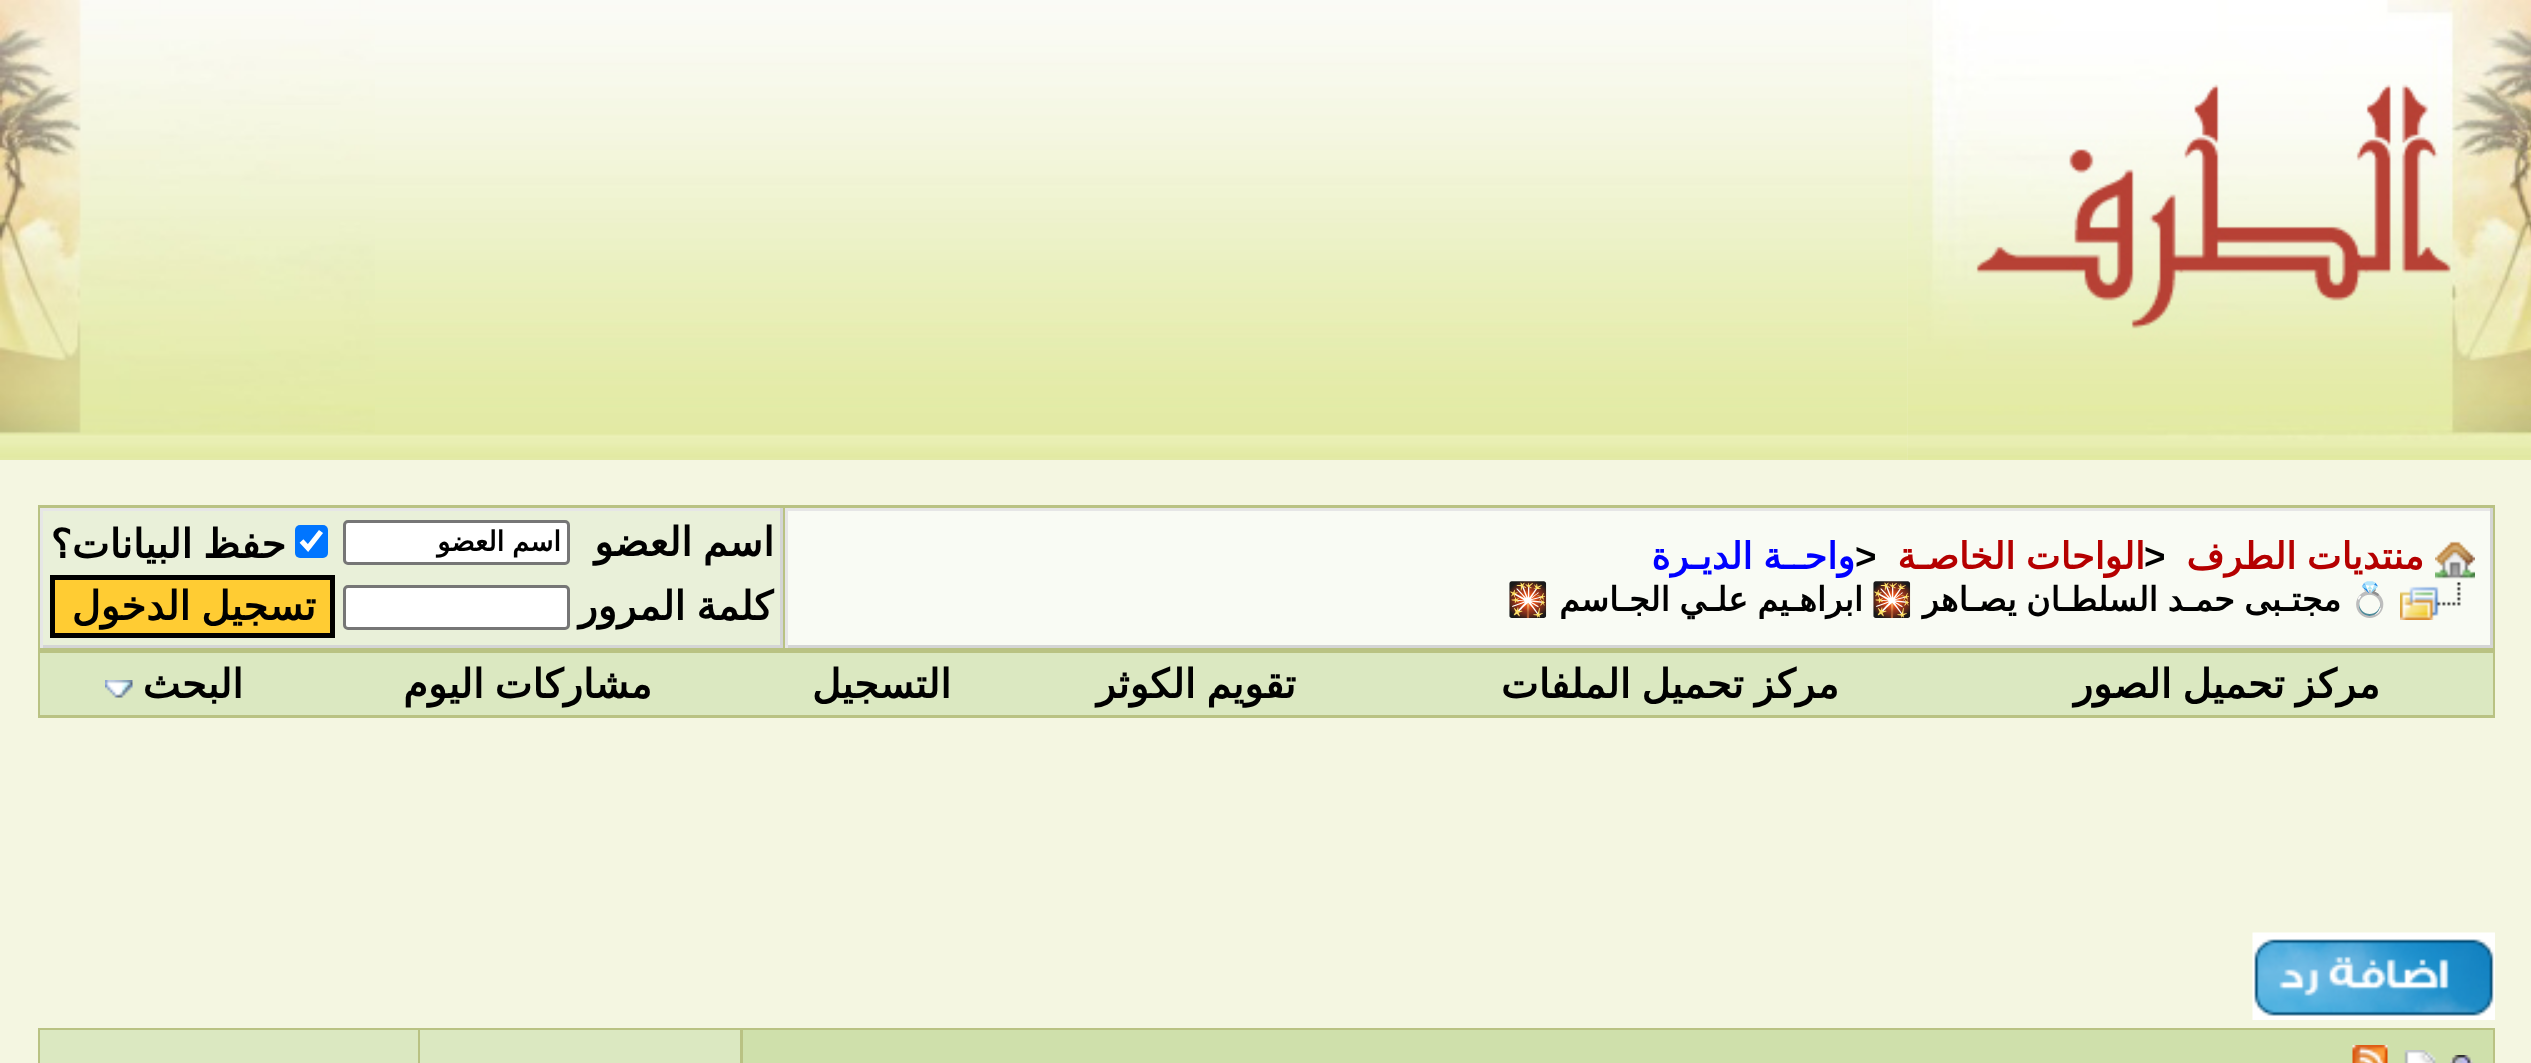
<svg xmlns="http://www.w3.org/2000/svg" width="2531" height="1063">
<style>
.a{font:bold 36.75px DejaVu Sans;direction:rtl;fill:#b50000}
.b{font:bold 36.75px Liberation Sans;fill:#000}
.c{font:bold 36.75px DejaVu Sans;direction:rtl;fill:#00f}
.d{font:bold 33.3px Noto Color Emoji;direction:rtl;fill:#000}
.e{font:bold 33.3px DejaVu Sans;direction:rtl;fill:#000}
.f{font:bold 40px DejaVu Sans;direction:rtl;fill:#000}
.g{font:bold 27.5px DejaVu Sans;direction:rtl;fill:#000}
</style>
<rect width="100%" height="100%" fill="#f4f6e1"/>
<image href="1.png" x="1907" y="0" width="1" height="460"/>
<image href="3.png" x="375" y="0" width="1533" height="460"/>
<image href="2.png" x="1907" y="0" width="624" height="460"/>
<image href="4.png" x="0" y="434" width="375" height="26"/>
<image href="5.png" x="0" y="0" width="375" height="434"/>
<path fill="#b9c283" d="M38 505h2457v213H38z"/>
<path fill="#f9fbf4" d="M788 511h1702v134H788z"/>
<path fill="#e6e6e6" d="M785 508h1708v3H785z"/>
<path fill="#d4d5d5" d="M2490 508h3v140H2490z"/>
<path fill="#d4d5d5" d="M785 645h1708v3H785z"/>
<path fill="#e6e6e6" d="M785 508h3v140H785z"/>
<image href="6.png" x="2435" y="541" width="40" height="38"/>
<image href="7.png" x="2400" y="582" width="61" height="38"/>
<path fill="#e9f0d9" d="M43 511h737v134H43z"/>
<path fill="#e6e6e6" d="M40 508h743v3H40z"/>
<path fill="#d4d5d5" d="M780 508h3v140H780z"/>
<path fill="#d4d5d5" d="M40 645h743v3H40z"/>
<path fill="#e6e6e6" d="M40 508h3v140H40z"/>
<rect fill="#fff" stroke="#767676" stroke-width="3" x="344.5" y="521.5" width="224" height="42" rx="3.5"/>
<rect fill="#0075ff" x="295" y="525" width="33" height="33" rx="5"/>
<path fill="none" stroke="#fff" stroke-width="5.2" d="M301.5 541l6.5 7l13-16.5"/>
<rect fill="#fff" stroke="#767676" stroke-width="3" x="344.5" y="586.5" width="224" height="42" rx="3.5"/>
<path fill="#fc3" stroke="#000" stroke-width="5" d="M52.5 577.5h280v58H52.5z"/>
<path fill="#dbe8c1" d="M40 653h2453v62H40z"/>
<image href="8.png" x="105" y="680" width="28" height="18"/>
<image href="9.png" x="2252" y="932" width="243" height="88"/>
<path fill="#b9c283" d="M38 1028h2457v35H38z"/>
<path fill="#cfe0ab" d="M743 1030h1750v33H743z"/>
<image href="10.png" x="2450" y="1055" width="24" height="8"/>
<image href="11.png" x="2404" y="1050" width="32" height="13"/>
<image href="12.png" x="2352" y="1045" width="36" height="18"/>
<path fill="#dbe8c1" d="M420 1030h320v33H420z"/>
<path fill="#dbe8c1" d="M40 1030h378v33H40z"/>
<text class="a" x="2424" y="569" word-spacing="-1">منتديات الطرف</text>
<text class="b" x="2144" y="569">&gt;</text>
<text class="a" x="2145" y="569" word-spacing="-1">الواحات الخاصـة</text>
<text class="b" x="1855" y="569">&gt;</text>
<text class="c" x="1855" y="569" word-spacing="-1">واحــة الديـرة</text>
<text class="d" x="2391" y="611">💍</text>
<text class="e" x="2341" y="611" word-spacing="-1">مجتـبى حمـد السلطـان يصـاهر</text>
<text class="d" x="1913" y="611">🎇</text>
<text class="e" x="1863" y="611" word-spacing="-1">ابراهـيم علـي الجـاسم</text>
<text class="d" x="1549" y="611">🎇</text>
<text class="f" x="774" y="556" word-spacing="-2">اسم العضو</text>
<text class="g" x="561" y="551" word-spacing="-1">اسم العضو</text>
<text class="f" x="286" y="558" word-spacing="-2">حفظ البيانات؟</text>
<text class="f" x="773" y="620" word-spacing="-2">كلمة المرور</text>
<text class="f" x="316" y="620" word-spacing="-2">تسجيل الدخول</text>
<text class="f" x="2380" y="698" word-spacing="-2">مركز تحميل الصور</text>
<text class="f" x="1839" y="698" word-spacing="-2">مركز تحميل الملفات</text>
<text class="f" x="1296" y="698" word-spacing="-2">تقويم الكوثر</text>
<text class="f" x="951" y="698">التسجيل</text>
<text class="f" x="652" y="698" word-spacing="-2">مشاركات اليوم</text>
<text class="f" x="243" y="698">البحث</text>
</svg>
